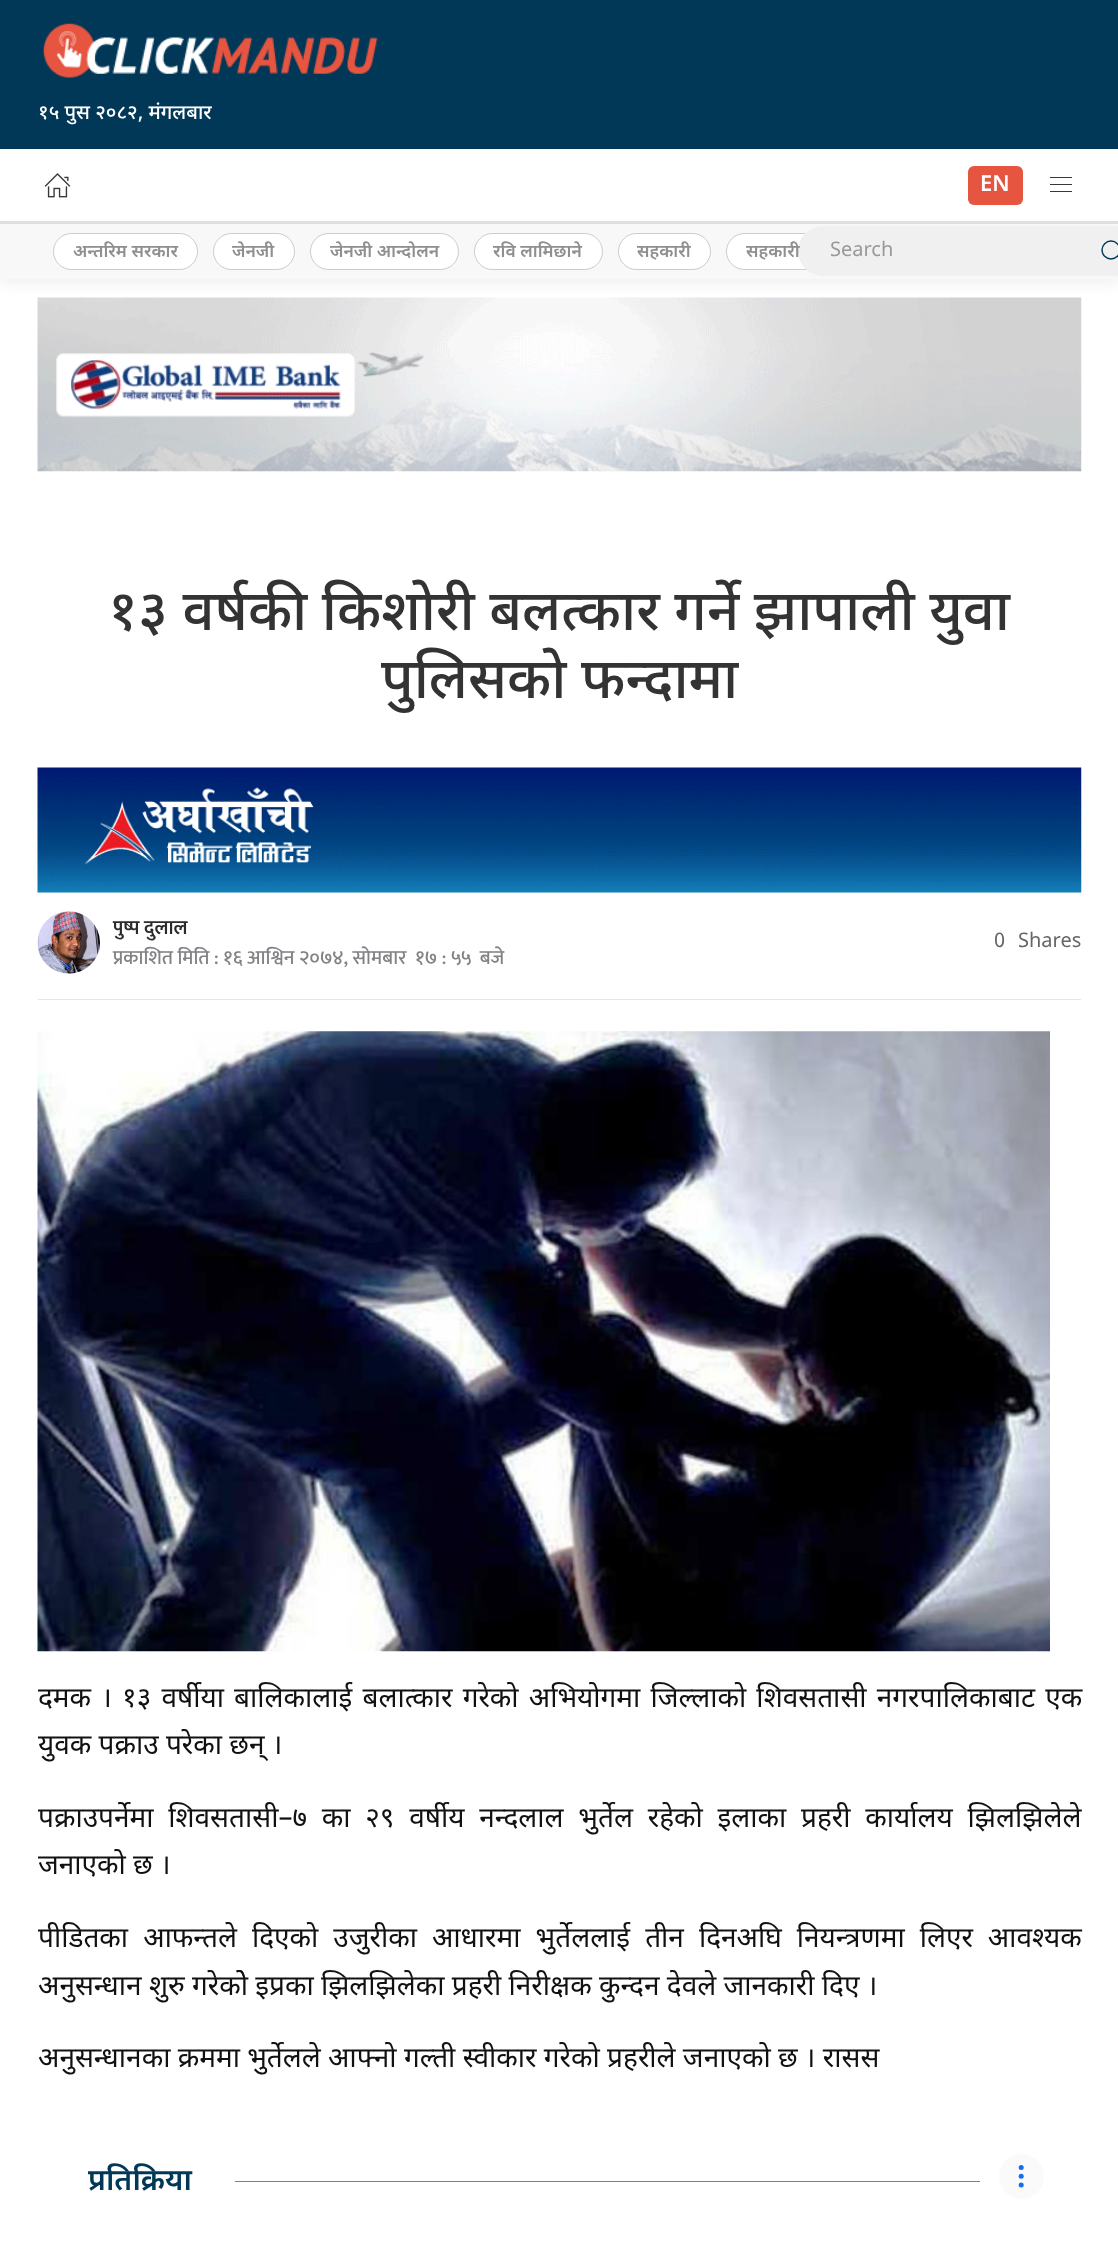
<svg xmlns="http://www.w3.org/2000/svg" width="1118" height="2245">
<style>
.a{font:500 20px Noto Sans Devanagari;fill:#fff}
.b{font:600 22px Noto Sans Devanagari;fill:#fff}
.c{font:600 17.5px Noto Sans;fill:#8f8f8f}
.d{font:20px Noto Sans Devanagari;fill:#999}
.e{font:500 56.25px Noto Sans Devanagari;fill:#333}
.f{font:600 20px Mukta;fill:#2b2b2b}
.g{font:500 20px Mukta;fill:#818285}
.h{font:20px Noto Sans Devanagari;fill:#666}
.i{font:28px Noto Sans Devanagari;fill:#111}
.j{font:600 30px Noto Sans Devanagari;fill:#013757}
</style>
<rect width="100%" height="100%" fill="#fff"/>
<path fill="#013757" d="M0 0h1118v149H0z"/>
<image href="1.png" x="43" y="23" width="335" height="55"/>
<image href="3.png" x="37" y="297" width="1045" height="175"/>
<path fill="#0000000d" filter="blur(6px)" d="M0 230h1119v55H0z"/>
<path fill="#dfdfdf" d="M0 221h1118v3H0z"/>
<image href="2.png" x="44" y="173" width="27" height="25"/>
<rect fill="#e65540" x="968" y="166" width="55" height="39" rx="6"/>
<path fill="#383838" d="M1050 177h22v1H1050z"/>
<path fill="#383838" d="M1050 184h22v1H1050z"/>
<path fill="#383838" d="M1050 191h22v1H1050z"/>
<path fill="#f8f8f8" d="M0 224h1118v55H0z"/>
<rect fill="#fff" x="53" y="233" width="145" height="37" rx="18.5"/>
<rect fill="none" stroke="#00000033" x="53.5" y="233.5" width="144" height="36" rx="18"/>
<rect fill="#fff" x="213" y="233" width="82" height="37" rx="18.5"/>
<rect fill="none" stroke="#00000033" x="213.5" y="233.5" width="81" height="36" rx="18"/>
<rect fill="#fff" x="310" y="233" width="149" height="37" rx="18.5"/>
<rect fill="none" stroke="#00000033" x="310.5" y="233.5" width="148" height="36" rx="18"/>
<rect fill="#fff" x="474" y="233" width="129" height="37" rx="18.5"/>
<rect fill="none" stroke="#00000033" x="474.5" y="233.5" width="128" height="36" rx="18"/>
<rect fill="#fff" x="618" y="233" width="93" height="37" rx="18.5"/>
<rect fill="none" stroke="#00000033" x="618.5" y="233.5" width="92" height="36" rx="18"/>
<rect fill="#fff" x="726" y="233" width="124" height="37" rx="18.5"/>
<rect fill="none" stroke="#00000033" x="726.5" y="233.5" width="123" height="36" rx="18"/>
<rect fill="#f0f0f0" x="798" y="226" width="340" height="50" rx="25"/>
<circle fill="none" stroke="#013757" stroke-width="1.4" cx="1111" cy="250" r="9"/>
<path fill="none" stroke="#013757" stroke-width="1.4" d="M1117.5 256l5 5z"/>
<image href="4.png" x="37" y="767" width="1045" height="126"/>
<image href="5.png" x="37" y="911" width="63" height="63"/>
<path fill="#e5e5e5" d="M38 999h1043v1H38z"/>
<image href="6.png" x="37" y="1031" width="1013" height="621"/>
<path fill="#e65540" d="M235 2181h745v1H235z"/>
<circle fill="#fafafa" cx="1021.5" cy="2176.5" r="22.5"/>
<circle fill="#116fef" cx="1021.2" cy="2167.5" r="2.5"/>
<circle fill="#116fef" cx="1021.2" cy="2176.2" r="2.5"/>
<circle fill="#116fef" cx="1021.2" cy="2185" r="2.5"/>
<text class="a" x="38" y="119">१५ पुस २०८२, मंगलबार</text>
<text class="b" x="980" y="191">EN</text>
<text class="c" x="73" y="257">अन्तरिम सरकार</text>
<text class="c" x="232" y="257">जेनजी</text>
<text class="c" x="330" y="257">जेनजी आन्दोलन</text>
<text class="c" x="493" y="257">रवि लामिछाने</text>
<text class="c" x="637" y="257">सहकारी</text>
<text class="c" x="746" y="257">सहकारी</text>
<text class="d" x="830" y="256">Search</text>
<text class="e" x="108" y="630">१३ वर्षकी किशोरी बलत्कार गर्ने झापाली युवा</text>
<text class="e" x="381" y="698">पुलिसको फन्दामा</text>
<text class="f" x="113" y="934">पुष्प दुलाल</text>
<text class="g" x="113" y="964">प्रकाशित मिति : १६ आश्विन २०७४, सोमबार</text>
<text class="g" xml:space="preserve" x="415" y="964">१७ : ५५  बजे</text>
<text class="h" x="994" y="947">0</text>
<text class="h" x="1018" y="947">Shares</text>
<text class="i" x="38" y="1707" word-spacing="2.9">दमक । १३ वर्षीया बालिकालाई बलात्कार गरेको अभियोगमा जिल्लाको शिवसतासी नगरपालिकाबाट एक</text>
<text class="i" x="38" y="1754">युवक पक्राउ परेका छन् ।</text>
<text class="i" x="38" y="1827" word-spacing="7.5">पक्राउपर्नेमा शिवसतासी–७ का २९ वर्षीय नन्दलाल भुर्तेल रहेको इलाका प्रहरी कार्यालय झिलझिलेले</text>
<text class="i" x="38" y="1874">जनाएको छ ।</text>
<text class="i" x="38" y="1947" word-spacing="7.75">पीडितका आफन्तले दिएको उजुरीका आधारमा भुर्तेललाई तीन दिनअघि नियन्त्रणमा लिएर आवश्यक</text>
<text class="i" x="38" y="1995">अनुसन्धान शुरु गरेकोे इप्रका झिलझिलेका प्रहरी निरीक्षक कुन्दन देवले जानकारी दिए ।</text>
<text class="i" x="38" y="2067">अनुसन्धानका क्रममा भुर्तेलले आफ्नो गल्ती स्वीकार गरेको प्रहरीले जनाएको छ । रासस</text>
<text class="j" x="88" y="2190">प्रतिक्रिया</text>
</svg>
